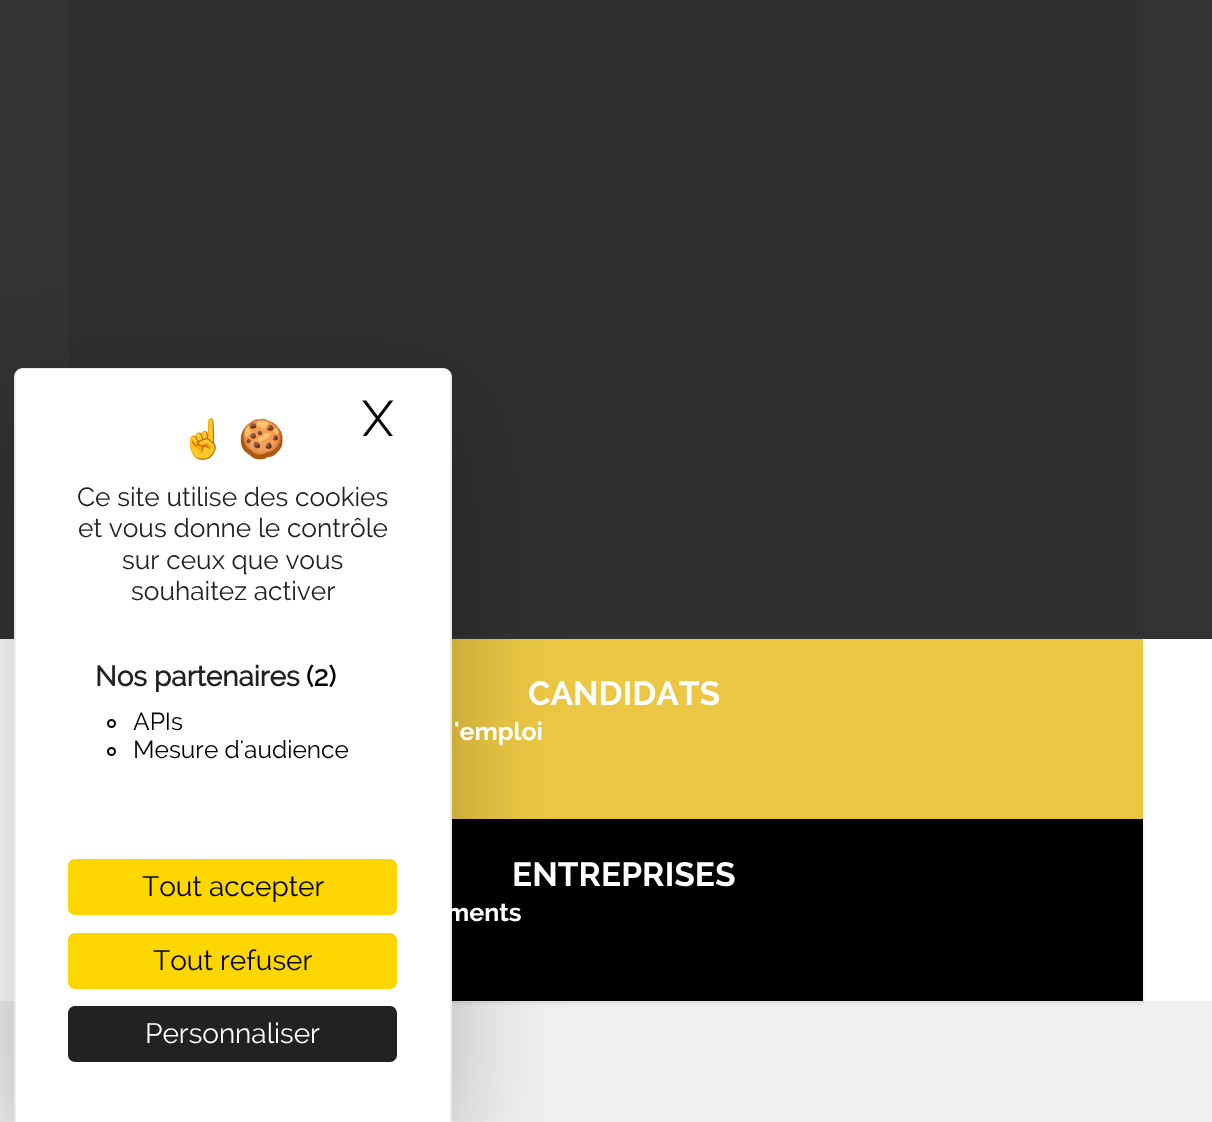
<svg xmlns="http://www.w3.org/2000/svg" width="1212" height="1122">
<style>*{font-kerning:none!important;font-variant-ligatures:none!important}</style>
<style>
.a{font:38px Noto Color Emoji;fill:#222}
.b{font:50px Raleway;fill:#000}
.c{font:26.25px Raleway;fill:#222}
.d{font:bold 28px 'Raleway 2';fill:#222}
.e{font:bold 28px 'Raleway 2';fill:#000}
.f{font:24.5px Raleway;fill:#000}
.g{font:28px Raleway;fill:#000}
.h{font:28px Raleway;fill:#fff}
.i{font:bold 33.5px Raleway;fill:#fff}
.j{font:bold 25px Raleway;fill:#fff}
</style>
<rect width="100%" height="100%" fill="#fff"/>
<path fill="#f0f0f0" d="M70 0h1073v635H70z"/>
<path fill="#0000001a" filter="blur(2px)" d="M105 641h1038v180H105z"/>
<path fill="#000000cc" d="M0 0h1212v639H0z"/>
<path fill="#f0f0f0" d="M0 1001h1212v121H0z"/>
<path fill="#ebc744" d="M452 639h691v180H452z"/>
<path fill="#0000001a" filter="blur(2px)" d="M105 821h1038v182H105z"/>
<path fill="#000" d="M452 819h691v182H452z"/>
<rect fill="#00000040" filter="blur(52.5px)" x="14" y="403" width="438" height="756" rx="9"/>
<path fill="#fff" d="M23 368h420c5 0 9 4 9 9v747h-438v-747c0-5 4-9 9-9z"/>
<path fill="#00000014" fill-rule="evenodd" d="M23 368h420c5 0 9 3 9 8v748h-438v-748c0-5 4-8 9-8zm0 1h420c4 0 7 3 7 7v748h-434v-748c0-4 3-7 7-7z"/>
<circle fill="none" stroke="#000" stroke-width="2" cx="111.5" cy="723.5" r="3.5"/>
<circle fill="none" stroke="#000" stroke-width="2" cx="111.5" cy="751.5" r="3.5"/>
<rect fill="#fbd600" x="68" y="859" width="329" height="56" rx="7"/>
<rect fill="#fbd600" x="68" y="933" width="329" height="56" rx="7"/>
<rect fill="#222" x="68" y="1006" width="329" height="56" rx="7"/>
<text class="a" x="180" y="452">☝️</text>
<text class="a" x="238" y="452">🍪</text>
<text class="b" x="362" y="436">X</text>
<text class="c" x="77" y="506">Ce site utilise des cookies</text>
<text class="c" x="78" y="537">et vous donne le contrôle</text>
<text class="c" x="122" y="569">sur ceux que vous</text>
<text class="c" x="131" y="600">souhaitez activer</text>
<text class="d" x="95" y="686">Nos partenaires</text>
<text class="e" x="306" y="686">(2)</text>
<text class="f" x="133" y="730">APIs</text>
<text class="f" x="133" y="758">Mesure d'audience</text>
<text class="g" x="142" y="896">Tout accepter</text>
<text class="g" x="153" y="970">Tout refuser</text>
<text class="h" x="145" y="1043">Personnaliser</text>
<text class="i" x="528" y="705">CANDIDATS</text>
<text class="j" x="454" y="740">'emploi</text>
<text class="i" x="512" y="886">ENTREPRISES</text>
<text class="j" x="446" y="921">ments</text>
</svg>
